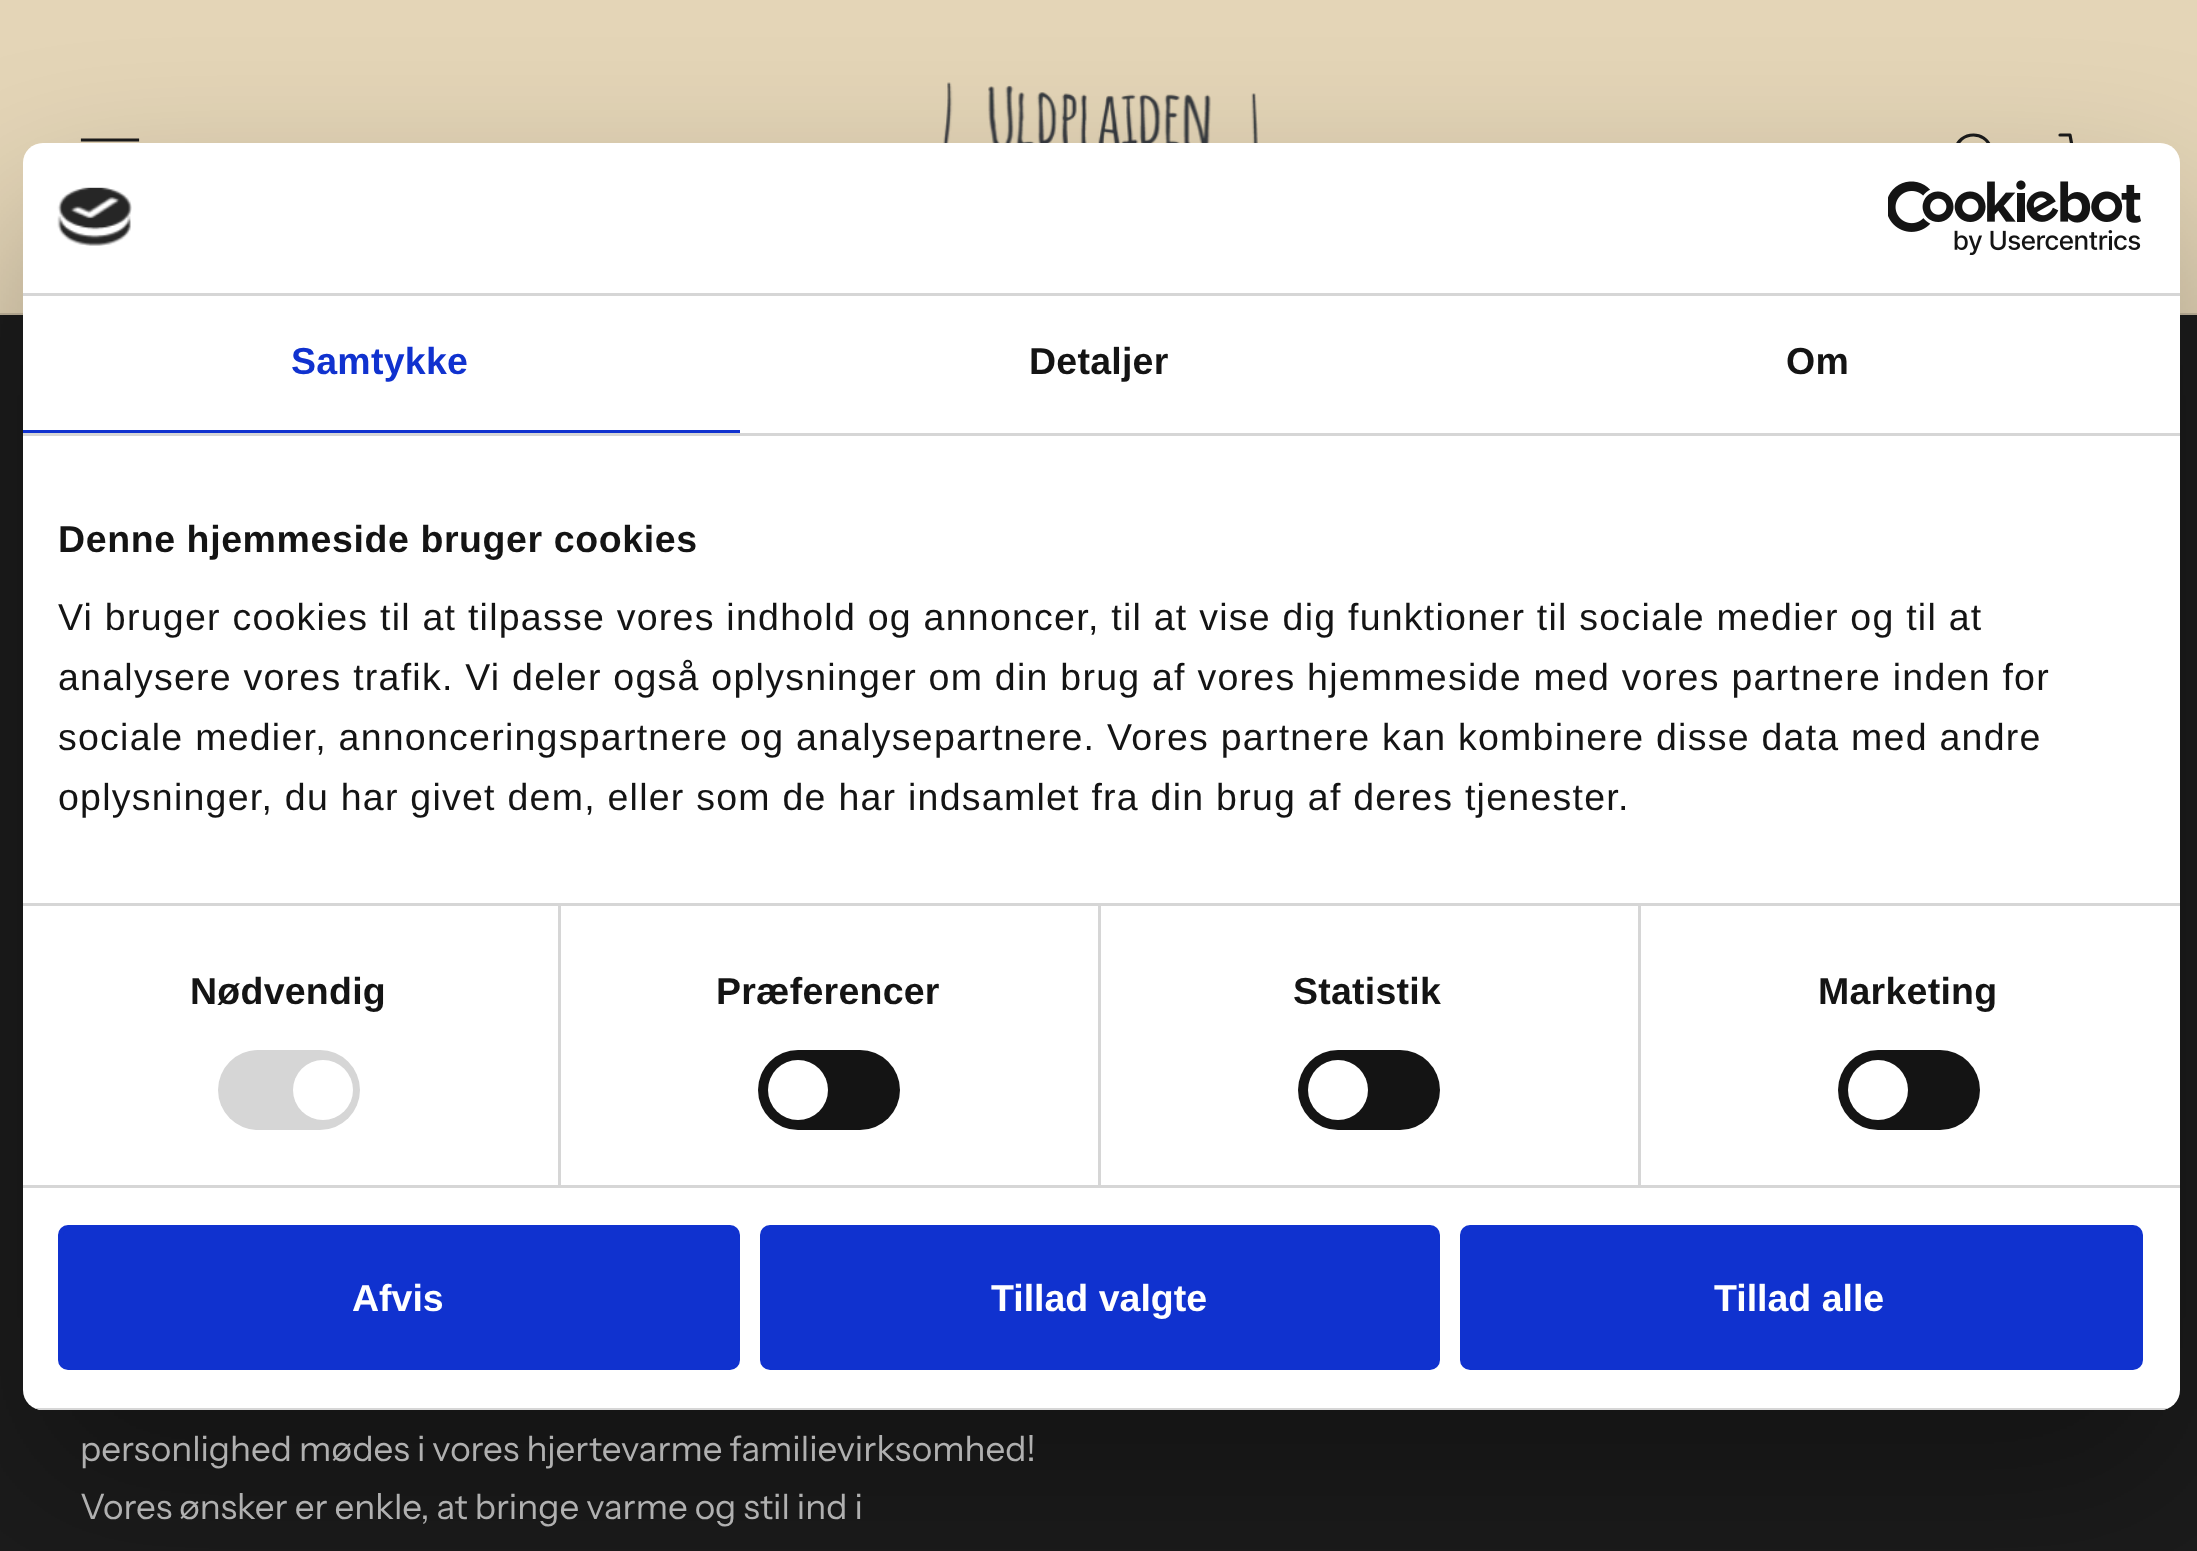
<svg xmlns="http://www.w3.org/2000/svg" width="2197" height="1551">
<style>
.a{font:bold 37.5px Liberation Sans;letter-spacing:0.25px;fill:#1032cf}
.b{font:bold 37.5px Liberation Sans;letter-spacing:0.25px;fill:#141414}
.c{font:bold 37.5px Liberation Sans;letter-spacing:0.6px;fill:#141414}
.d{font:37.5px Liberation Sans;letter-spacing:1.25px;fill:#141414}
.e{font:bold 37.5px Liberation Sans;fill:#fff}
.f{font:35px Instrument Sans;fill:#b0b0b0}
</style>
<defs>
<clipPath id="clip1"><path d="M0 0h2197v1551h-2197zm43 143h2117c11 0 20 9 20 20v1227c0 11-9 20-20 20h-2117c-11 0-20-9-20-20v-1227c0-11 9-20 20-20z" clip-rule="evenodd"/></clipPath>
<clipPath id="clip2"><rect x="23" y="143" width="2157" height="1267" rx="20"/></clipPath>
</defs>
<rect width="100%" height="100%" fill="#1c1c1c"/>
<path fill="#e4d5b7" d="M0 0h2197v313H0z"/>
<path fill="#c6b9a0" d="M0 313h2197v2H0z"/>
<image href="1.png" x="943" y="82" width="315" height="61"/>
<path fill="none" stroke="#1c1c1c" stroke-width="3.2" stroke-linecap="square" d="M82.5 175h55m-55-17.5h55m-55-17.5h55"/>
<path fill="none" stroke="#1c1c1c" stroke-width="3.2" d="M1973.5 135c-19 0-26 25-9.5 34.5c3 1.5 6 2.5 9.5 2.5c18-1 25-23.5 10-34c-3-2-6.5-3-10-3z"/>
<path fill="none" stroke="#1c1c1c" stroke-width="3.2" stroke-linecap="round" stroke-linejoin="round" d="M2082.5 145h32.5l-10 22.5h-29l-6-32.5h-10"/>
<g clip-path="url(#clip1)">
<rect fill="#0000004d" filter="blur(85px)" x="23" y="223" width="2157" height="1267" rx="20"/>
</g>
<rect fill="#fff" x="23" y="143" width="2157" height="1267" rx="20"/>
<path fill="#d6d6d6" d="M23 293h2157v3H23z"/>
<image href="2.png" x="57" y="187" width="75" height="59"/>
<image href="3.png" x="1888" y="180" width="253" height="75"/>
<path fill="#d6d6d6" d="M23 433h2157v3H23z"/>
<path fill="#1032cf" d="M23 430h717v3H23z"/>
<path fill="#d6d6d6" d="M558 905h3v280H558z"/>
<path fill="#d6d6d6" d="M1098 905h3v280H1098z"/>
<path fill="#d6d6d6" d="M1638 905h3v280H1638z"/>
<path fill="#d6d6d6" d="M23 903h2157v3H23z"/>
<path fill="#d6d6d6" d="M23 1185h2157v3H23z"/>
<rect fill="#d6d6d6" x="218" y="1050" width="142" height="80" rx="40"/>
<circle fill="#fff" cx="323" cy="1090" r="30"/>
<rect fill="#141414" x="758" y="1050" width="142" height="80" rx="40"/>
<circle fill="#fff" cx="798" cy="1090" r="30"/>
<rect fill="#141414" x="1298" y="1050" width="142" height="80" rx="40"/>
<circle fill="#fff" cx="1338" cy="1090" r="30"/>
<rect fill="#141414" x="1838" y="1050" width="142" height="80" rx="40"/>
<circle fill="#fff" cx="1878" cy="1090" r="30"/>
<g clip-path="url(#clip2)">
<path fill="#d6d6d6" d="M34 1408h2135v2H34z"/>
</g>
<rect fill="#1032cf" stroke="#1032cf" stroke-width="5" x="60.5" y="1227.5" width="677" height="140" rx="7.5"/>
<rect fill="#1032cf" stroke="#1032cf" stroke-width="5" x="762.5" y="1227.5" width="675" height="140" rx="7.5"/>
<rect fill="#1032cf" stroke="#1032cf" stroke-width="5" x="1462.5" y="1227.5" width="678" height="140" rx="7.5"/>
<text class="a" x="291" y="374">Samtykke</text>
<text class="b" x="1029" y="374">Detaljer</text>
<text class="b" x="1786" y="374">Om</text>
<text class="c" x="58" y="552">Denne hjemmeside bruger cookies</text>
<text class="d" x="58" y="630">Vi bruger cookies til at tilpasse vores indhold og annoncer, til at vise dig funktioner til sociale medier og til at</text>
<text class="d" x="58" y="690">analysere vores trafik. Vi deler også oplysninger om din brug af vores hjemmeside med vores partnere inden for</text>
<text class="d" x="58" y="750">sociale medier, annonceringspartnere og analysepartnere. Vores partnere kan kombinere disse data med andre</text>
<text class="d" x="58" y="810">oplysninger, du har givet dem, eller som de har indsamlet fra din brug af deres tjenester.</text>
<text class="b" x="190" y="1004">Nødvendig</text>
<text class="b" x="716" y="1004">Præferencer</text>
<text class="b" x="1293" y="1004">Statistik</text>
<text class="b" x="1818" y="1004">Marketing</text>
<text class="e" x="352" y="1311">Afvis</text>
<text class="e" x="991" y="1311">Tillad valgte</text>
<text class="e" x="1714" y="1311">Tillad alle</text>
<text class="f" x="80" y="1461">personlighed mødes i vores hjertevarme familievirksomhed!</text>
<text class="f" x="80" y="1519">Vores ønsker er enkle, at bringe varme og stil ind i</text>
</svg>
